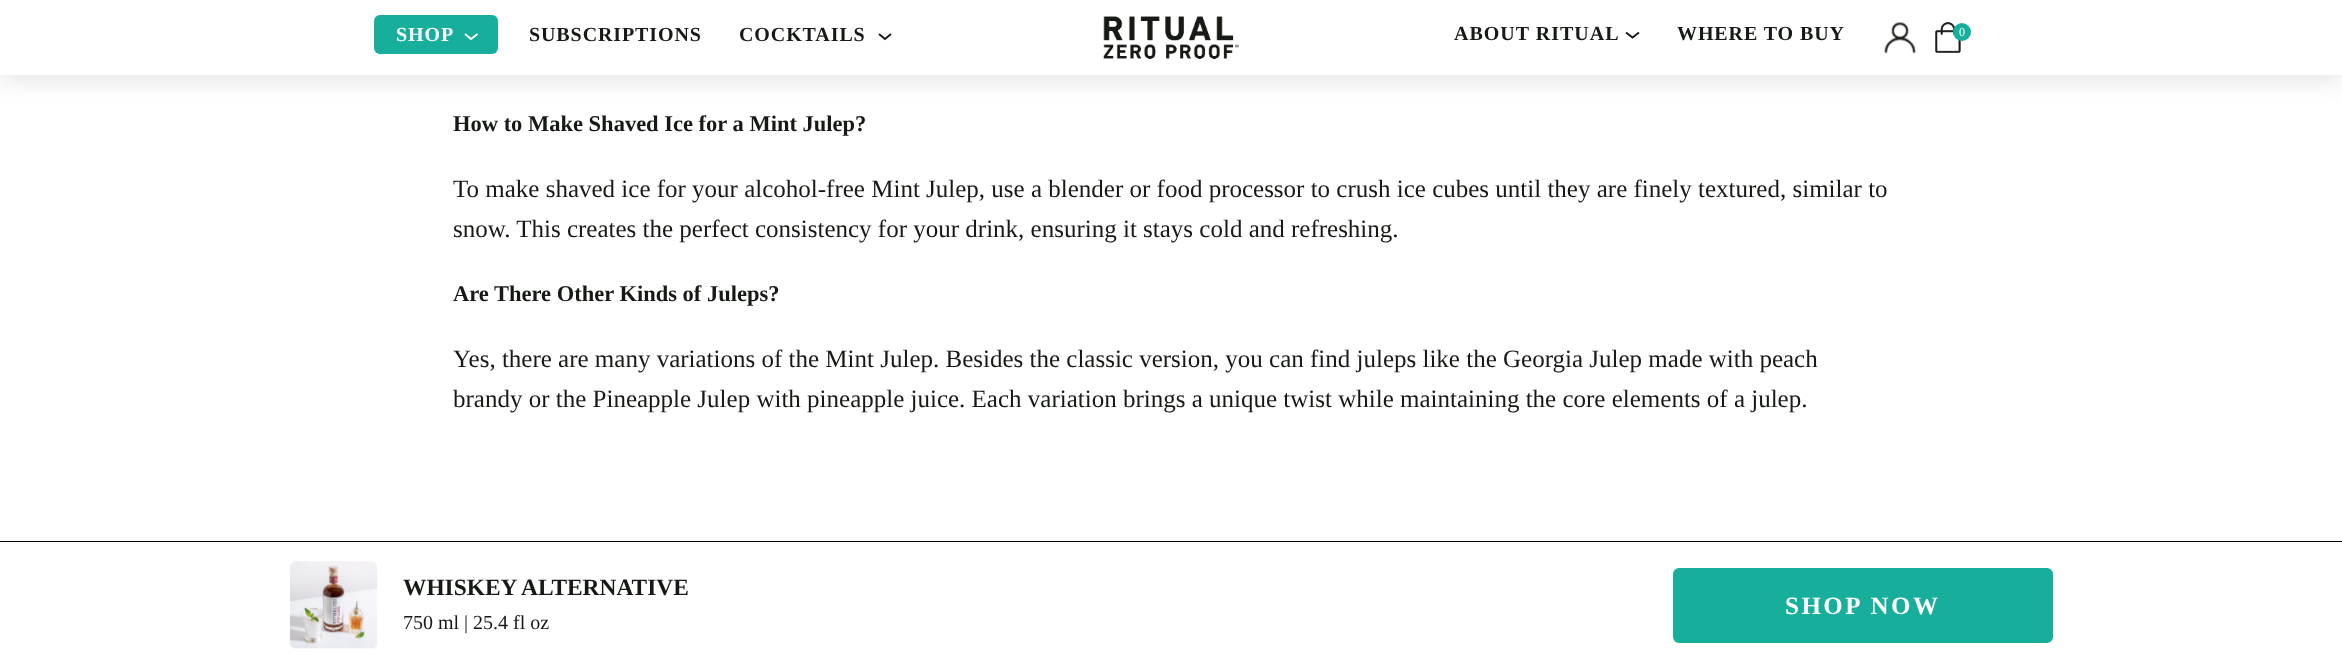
<svg xmlns="http://www.w3.org/2000/svg" width="2342" height="667">
<style>
.a{font:bold 20px Liberation Serif;letter-spacing:0.9px;fill:#fff}
.b{font:bold 20px Liberation Serif;letter-spacing:0.9px;fill:#161a14}
.c{font:bold 20px Liberation Serif;letter-spacing:1px;fill:#161a14}
.d{font:12px Liberation Serif;letter-spacing:1px;fill:#fff}
.e{font:bold 22.5px Liberation Serif;fill:#161a14}
.f{font:25px Liberation Serif;fill:#161a14}
.g{font:bold 23.4px Liberation Serif;fill:#161a14}
.h{font:20px Liberation Serif;fill:#161a14}
.i{font:bold 25px Liberation Serif;letter-spacing:2.5px;fill:#fff}
</style>
<rect width="100%" height="100%" fill="#fff"/>
<path fill="#0000001a" filter="blur(12.5px)" d="M0 6h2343v75H0z"/>
<path fill="#fff" d="M0 0h2342v75H0z"/>
<rect fill="#17af9c" x="374" y="15" width="124" height="39" rx="6"/>
<path fill="none" stroke="#fff" stroke-width="1.9" d="M465 34l6 5l6.5-5"/>
<path fill="none" stroke="#161a14" stroke-width="1.9" d="M879 34l6 5l6-5"/>
<image href="1.png" x="1103" y="16" width="136" height="43"/>
<path fill="none" stroke="#161a14" stroke-width="1.9" d="M1626 32.5l6.5 5l6.5-5"/>
<image href="2.png" x="1884" y="22" width="32" height="32"/>
<image href="3.png" x="1935" y="22" width="26" height="31"/>
<circle fill="#17af9c" cx="1962" cy="32" r="9"/>
<path fill="#000" d="M0 541h2342v1H0z"/>
<image href="4.png" x="290" y="561" width="88" height="88"/>
<rect fill="#17af9c" stroke="#17af9c" stroke-width="3" x="1674.5" y="569.5" width="377" height="72" rx="4.5"/>
<text class="a" x="396" y="41">SHOP</text>
<text class="b" x="529" y="41">SUBSCRIPTIONS</text>
<text class="b" x="739" y="41">COCKTAILS</text>
<text class="c" x="1454" y="40">ABOUT RITUAL</text>
<text class="b" x="1677" y="40">WHERE TO BUY</text>
<text class="d" x="1959" y="36">0</text>
<text class="e" x="453" y="131">How to Make Shaved Ice for a Mint Julep?</text>
<text class="f" x="453" y="197">To make shaved ice for your alcohol-free Mint Julep, use a blender or food processor to crush ice cubes until they are finely textured, similar to</text>
<text class="f" x="453" y="237">snow. This creates the perfect consistency for your drink, ensuring it stays cold and refreshing.</text>
<text class="e" x="453" y="301">Are There Other Kinds of Juleps?</text>
<text class="f" x="453" y="367">Yes, there are many variations of the Mint Julep. Besides the classic version, you can find juleps like the Georgia Julep made with peach</text>
<text class="f" x="453" y="407">brandy or the Pineapple Julep with pineapple juice. Each variation brings a unique twist while maintaining the core elements of a julep.</text>
<text class="g" x="403" y="595">WHISKEY ALTERNATIVE</text>
<text class="h" x="403" y="629">750 ml | 25.4 fl oz</text>
<text class="i" x="1785" y="614">SHOP NOW</text>
</svg>
